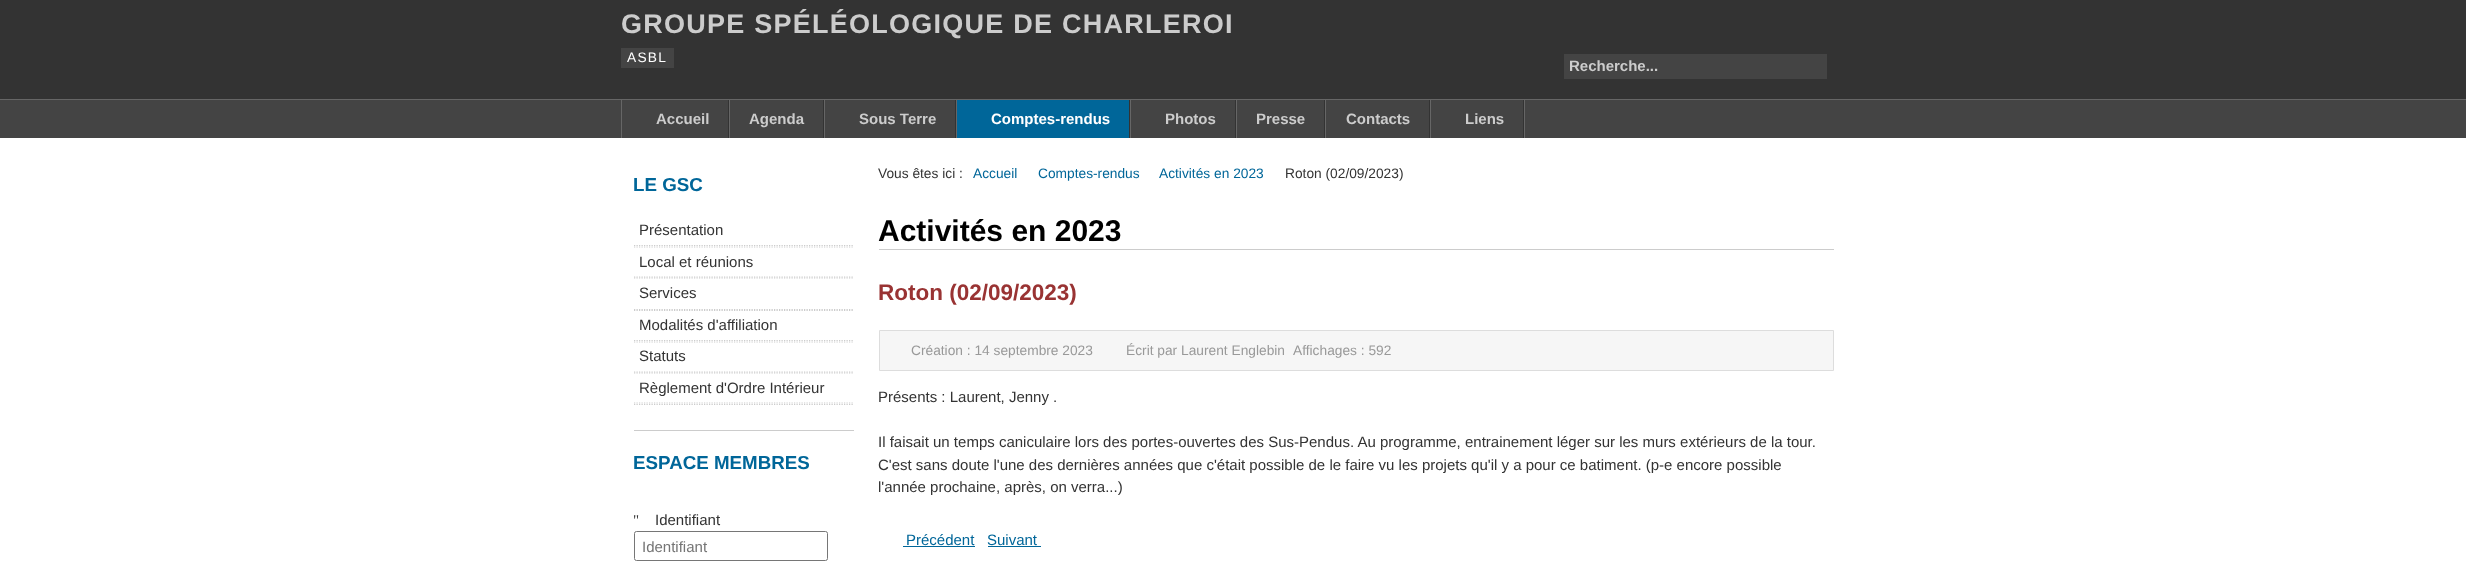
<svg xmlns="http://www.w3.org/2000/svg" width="2466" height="579">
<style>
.a{font:bold 27px Liberation Sans;letter-spacing:1.25px;fill:#ccc}
.b{font:13.75px Liberation Sans;letter-spacing:1.25px;fill:#fff}
.c{font:bold 15px Liberation Sans;fill:#ccc}
.d{font:bold 15px Liberation Sans;fill:#fff}
.e{font:bold 18.75px Liberation Sans;fill:#069}
.f{font:15px Liberation Sans;fill:#333}
.g{font:15px Liberation Serif;fill:#333}
.h{font:15px Liberation Sans;fill:#757575}
.i{font:13.75px Liberation Sans;fill:#333}
.j{font:13.75px Liberation Sans;fill:#069}
.k{font:bold 30px Liberation Sans;fill:#000}
.l{font:bold 22.5px Liberation Sans;fill:#933}
.m{font:13.75px Liberation Sans;fill:#999}
.n{font:15px Liberation Sans;fill:#069}
</style>
<defs>
<clipPath id="clip1"><path d="M634 216h220v30H634z"/></clipPath>
<clipPath id="clip2"><path d="M634 279h220v31H634z"/></clipPath>
<clipPath id="clip3"><path d="M634 311h220v30H634z"/></clipPath>
</defs>
<rect width="100%" height="100%" fill="#fff"/>
<path fill="#333" d="M0 0h2466v99H0z"/>
<path fill="#444" d="M621 48h53v20H621z"/>
<path fill="#444" d="M1564 54h263v25H1564z"/>
<path fill="#444" d="M0 100h2466v38H0z"/>
<path fill="#666" d="M0 99h2466v1H0z"/>
<path fill="#666" d="M1524 100h1v38H1524z"/>
<path fill="#333" d="M728 100h1v38H728z"/>
<path fill="#666" d="M621 100h1v38H621z"/>
<path fill="#333" d="M823 100h1v38H823z"/>
<path fill="#666" d="M729 100h1v38H729z"/>
<path fill="#333" d="M955 100h1v38H955z"/>
<path fill="#666" d="M824 100h1v38H824z"/>
<path fill="#069" d="M957 100h172v38H957z"/>
<path fill="#333" d="M1129 100h1v38H1129z"/>
<path fill="#666" d="M956 100h1v38H956z"/>
<path fill="#333" d="M1235 100h1v38H1235z"/>
<path fill="#666" d="M1130 100h1v38H1130z"/>
<path fill="#333" d="M1324 100h1v38H1324z"/>
<path fill="#666" d="M1236 100h1v38H1236z"/>
<path fill="#333" d="M1429 100h1v38H1429z"/>
<path fill="#666" d="M1325 100h1v38H1325z"/>
<path fill="#333" d="M1523 100h1v38H1523z"/>
<path fill="#666" d="M1430 100h1v38H1430z"/>
<path fill="#ccc" d="M634 430h220v1H634z"/>
<path fill="none" stroke="#ccc" stroke-width="1.2" stroke-dasharray="1.25 1.25" d="M634 247h220"/>
<g clip-path="url(#clip1)">
<path fill="none" stroke="#ccc" stroke-width="1.2" stroke-dasharray="1.25 1.25" d="M634 245.5h220"/>
</g>
<path fill="none" stroke="#ccc" stroke-width="1.2" stroke-dasharray="1.25 1.25" d="M634 278h220"/>
<path fill="none" stroke="#ccc" stroke-width="1.2" stroke-dasharray="1.25 1.25" d="M634 277h220"/>
<path fill="none" stroke="#ccc" stroke-width="1.2" stroke-dasharray="1.25 1.25" d="M634 310.5h220"/>
<g clip-path="url(#clip2)">
<path fill="none" stroke="#ccc" stroke-width="1.2" stroke-dasharray="1.25 1.25" d="M634 309.5h220"/>
</g>
<path fill="none" stroke="#ccc" stroke-width="1.2" stroke-dasharray="1.25 1.25" d="M634 342h220"/>
<g clip-path="url(#clip3)">
<path fill="none" stroke="#ccc" stroke-width="1.2" stroke-dasharray="1.25 1.25" d="M634 340.5h220"/>
</g>
<path fill="none" stroke="#ccc" stroke-width="1.2" stroke-dasharray="1.25 1.25" d="M634 373h220"/>
<path fill="none" stroke="#ccc" stroke-width="1.2" stroke-dasharray="1.25 1.25" d="M634 372h220"/>
<path fill="none" stroke="#ccc" stroke-width="1.2" stroke-dasharray="1.25 1.25" d="M634 404.5h220"/>
<path fill="none" stroke="#ccc" stroke-width="1.2" stroke-dasharray="1.25 1.25" d="M634 403h220"/>
<rect fill="none" stroke="#767676" x="634.5" y="531.5" width="193" height="29" rx="2"/>
<path fill="#ccc" d="M879 249h955v1H879z"/>
<path fill="#f6f6f6" stroke="#ddd" d="M879.5 330.5h954v40H879.5z"/>
<path fill="#069" d="M903 546h72v1H903z"/>
<path fill="#069" d="M988 546h53v1H988z"/>
<text class="a" x="621" y="33">GROUPE SPÉLÉOLOGIQUE DE CHARLEROI</text>
<text class="b" x="627" y="62">ASBL</text>
<text class="c" x="1569" y="71">Recherche...</text>
<text class="c" x="656" y="124">Accueil</text>
<text class="c" x="749" y="124">Agenda</text>
<text class="c" x="859" y="124">Sous Terre</text>
<text class="d" x="991" y="124">Comptes-rendus</text>
<text class="c" x="1165" y="124">Photos</text>
<text class="c" x="1256" y="124">Presse</text>
<text class="c" x="1346" y="124">Contacts</text>
<text class="c" x="1465" y="124">Liens</text>
<text class="e" x="633" y="191">LE GSC</text>
<text class="f" x="639" y="235">Présentation</text>
<text class="f" x="639" y="267">Local et réunions</text>
<text class="f" x="639" y="298">Services</text>
<text class="f" x="639" y="330">Modalités d'affiliation</text>
<text class="f" x="639" y="361">Statuts</text>
<text class="f" x="639" y="393">Règlement d'Ordre Intérieur</text>
<text class="e" x="633" y="469">ESPACE MEMBRES</text>
<text class="g" x="633" y="525">"</text>
<text class="f" x="655" y="525">Identifiant</text>
<text class="h" x="642" y="552">Identifiant</text>
<text class="i" x="878" y="178">Vous êtes ici :</text>
<text class="j" x="973" y="178">Accueil</text>
<text class="j" x="1038" y="178">Comptes-rendus</text>
<text class="j" x="1159" y="178">Activités en 2023</text>
<text class="i" x="1285" y="178">Roton (02/09/2023)</text>
<text class="k" x="878" y="241">Activités en 2023</text>
<text class="l" x="878" y="300">Roton (02/09/2023)</text>
<text class="m" x="911" y="355">Création : 14 septembre 2023</text>
<text class="m" x="1126" y="355">Écrit par Laurent Englebin</text>
<text class="m" x="1293" y="355">Affichages : 592</text>
<text class="f" x="878" y="402">Présents : Laurent, Jenny .</text>
<text class="f" x="878" y="447">Il faisait un temps caniculaire lors des portes-ouvertes des Sus-Pendus. Au programme, entrainement léger sur les murs extérieurs de la tour.</text>
<text class="f" x="878" y="470">C'est sans doute l'une des dernières années que c'était possible de le faire vu les projets qu'il y a pour ce batiment. (p-e encore possible</text>
<text class="f" x="878" y="492">l'année prochaine, après, on verra...)</text>
<text class="n" x="906" y="545">Précédent</text>
<text class="n" x="987" y="545">Suivant</text>
</svg>
